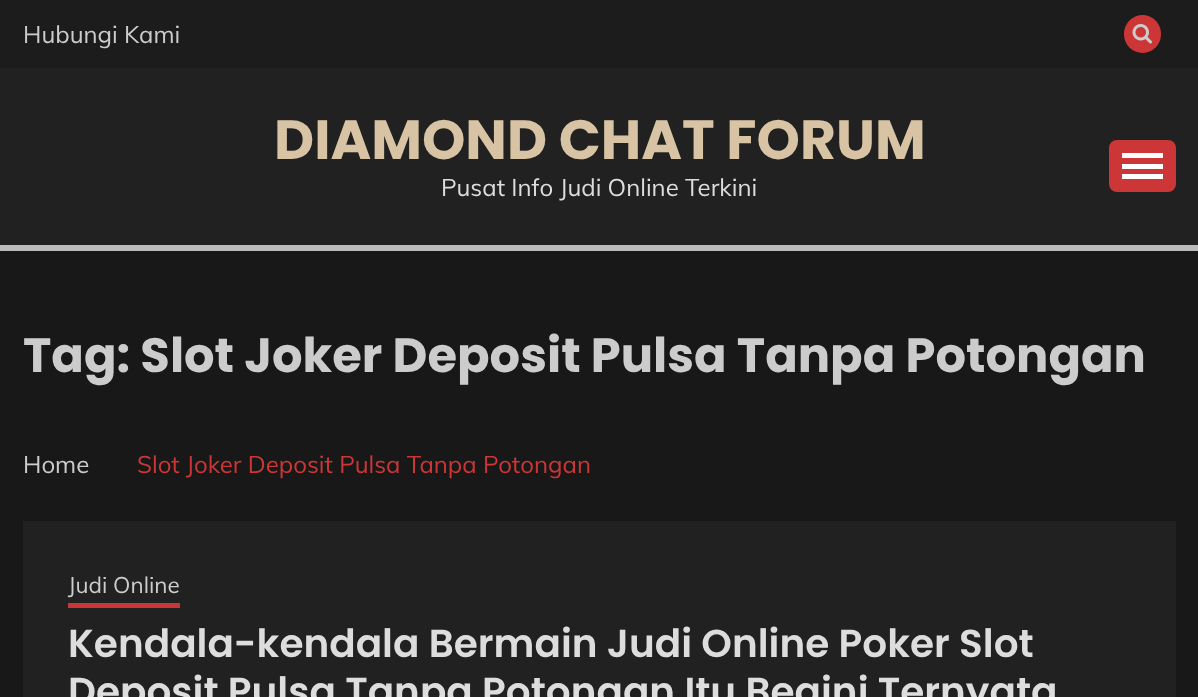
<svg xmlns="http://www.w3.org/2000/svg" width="1198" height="697">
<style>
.a{font:24px Muli;fill:#ccc}
.b{font:bold 55.25px Poppins;fill:#d8c4a4}
.c{font:24px Muli;fill:#ddd}
.d{font:bold 48px Poppins;fill:#ccc}
.e{font:24px Muli;fill:#cd3636}
.f{font:22.5px Muli;fill:#ccc}
.g{font:600 39px Poppins;fill:#ddd}
</style>
<rect width="100%" height="100%" fill="#181818"/>
<path fill="#212121" d="M0 68h1198v177H0z"/>
<path fill="#1c1c1c" d="M0 0h1198v68H0z"/>
<rect fill="#cd3636" x="1124" y="15" width="37" height="38" rx="18.5"/>
<image href="1.png" x="1132" y="24" width="20" height="20"/>
<path fill="#bbb" d="M0 245h1198v6H0z"/>
<rect fill="#cd3636" x="1109" y="140" width="67" height="52" rx="8"/>
<path fill="#fff" d="M1122 153h41v5H1122z"/>
<path fill="#fff" d="M1122 164h41v5H1122z"/>
<path fill="#fff" d="M1122 174h41v5H1122z"/>
<path fill="#212121" d="M23 521h1153v176H23z"/>
<path fill="#cd3636" d="M68 603h112v5H68z"/>
<text class="a" x="23" y="43">Hubungi Kami</text>
<text class="b" x="274" y="159">DIAMOND CHAT FORUM</text>
<text class="c" x="441" y="196">Pusat Info Judi Online Terkini</text>
<text class="d" x="23" y="372">Tag: Slot Joker Deposit Pulsa Tanpa Potongan</text>
<text class="a" x="23" y="473">Home</text>
<text class="e" x="137" y="473">Slot Joker Deposit Pulsa Tanpa Potongan</text>
<text class="f" x="68" y="593">Judi Online</text>
<text class="g" x="68" y="657">Kendala-kendala Bermain Judi Online Poker Slot</text>
<text class="g" x="68" y="705">Deposit Pulsa Tanpa Potongan Itu Begini Ternyata</text>
</svg>
